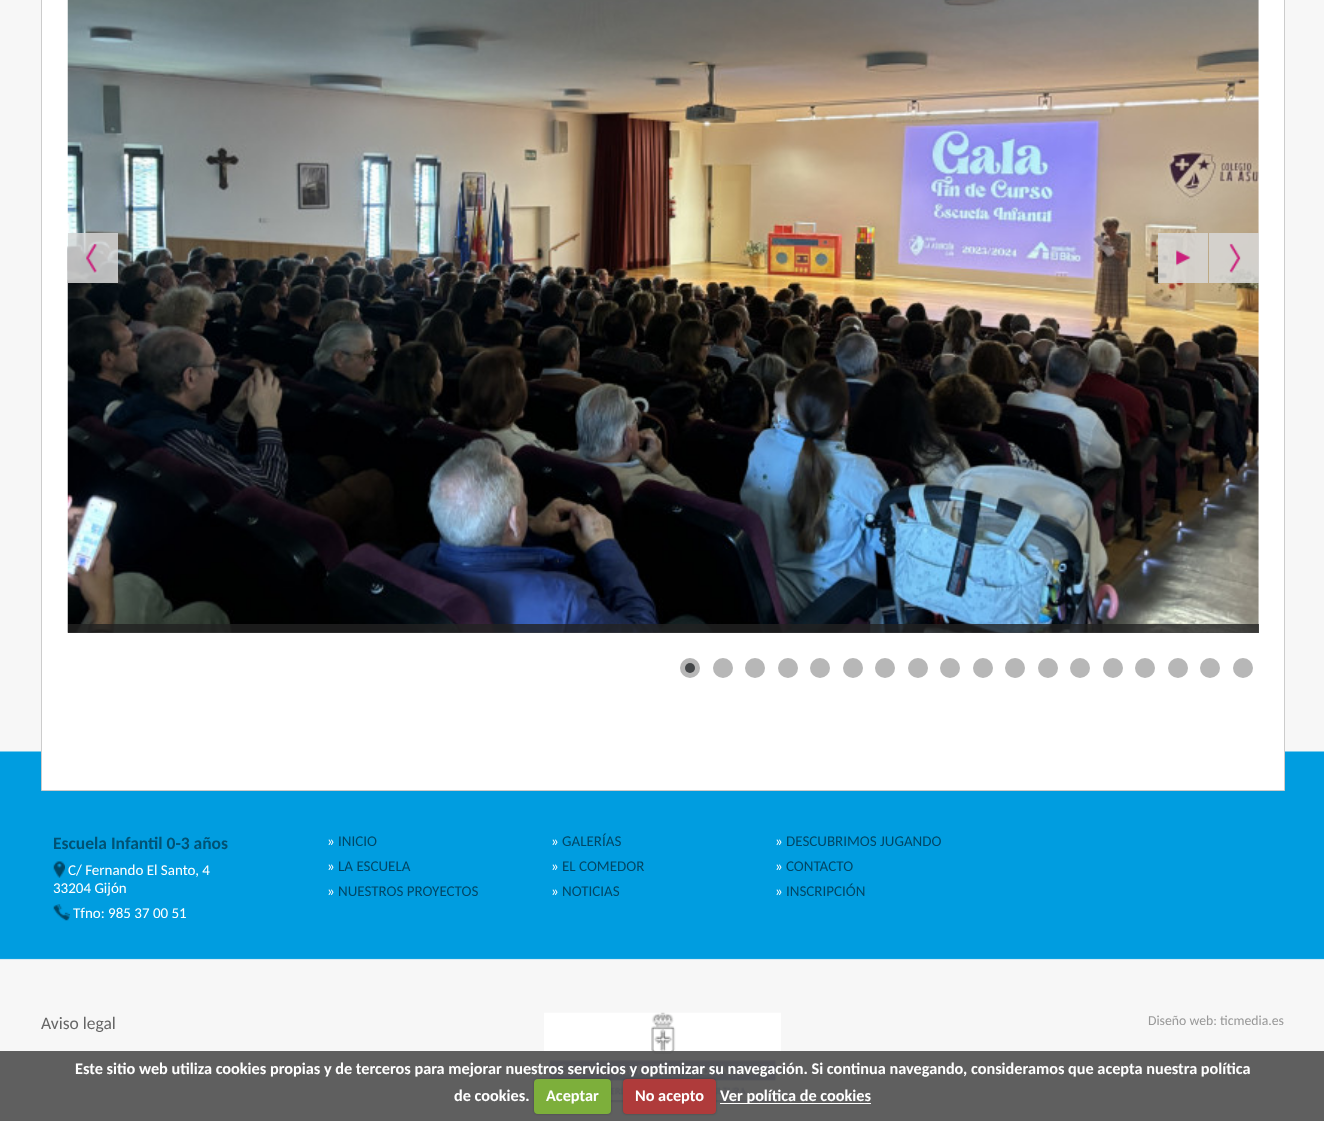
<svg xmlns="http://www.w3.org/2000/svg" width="1324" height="1121">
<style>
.a{font:bold 17.5px Carlito;fill:#005274}
.b{font:15px Carlito;fill:#fff}
.c{font:15px Carlito;fill:#004766}
.d{font:17.5px Carlito;fill:#666}
.e{font:13.75px Carlito;fill:#999}
.f{font:bold 16.25px Carlito;fill:#fff}
</style>
<rect width="100%" height="100%" fill="#f7f7f7"/>
<image href="1.png" x="0" y="751" width="1324" height="209"/>
<path fill="#fff" stroke="#ccc" d="M41.5 -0.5h1243v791H41.5z"/>
<image href="2.png" x="67" y="0" width="1192" height="633"/>
<path fill="#d8d8d8d9" d="M68 233h50v50H68z"/>
<image href="3.png" x="86" y="243" width="12" height="30"/>
<path fill="#d8d8d8d9" d="M1158 233h50v50H1158z"/>
<image href="4.png" x="1176" y="250" width="15" height="16"/>
<path fill="#d8d8d8d9" d="M1209 233h50v50H1209z"/>
<image href="5.png" x="1229" y="243" width="12" height="30"/>
<path fill="#222222cc" d="M68 624h1191v9H68z"/>
<circle fill="#b7b7b7" cx="690" cy="668" r="10"/>
<circle fill="#434648" cx="690" cy="668" r="5"/>
<circle fill="#b7b7b7" cx="723" cy="668" r="10"/>
<circle fill="#b7b7b7" cx="755" cy="668" r="10"/>
<circle fill="#b7b7b7" cx="788" cy="668" r="10"/>
<circle fill="#b7b7b7" cx="820" cy="668" r="10"/>
<circle fill="#b7b7b7" cx="853" cy="668" r="10"/>
<circle fill="#b7b7b7" cx="885" cy="668" r="10"/>
<circle fill="#b7b7b7" cx="918" cy="668" r="10"/>
<circle fill="#b7b7b7" cx="950" cy="668" r="10"/>
<circle fill="#b7b7b7" cx="983" cy="668" r="10"/>
<circle fill="#b7b7b7" cx="1015" cy="668" r="10"/>
<circle fill="#b7b7b7" cx="1048" cy="668" r="10"/>
<circle fill="#b7b7b7" cx="1080" cy="668" r="10"/>
<circle fill="#b7b7b7" cx="1113" cy="668" r="10"/>
<circle fill="#b7b7b7" cx="1145" cy="668" r="10"/>
<circle fill="#b7b7b7" cx="1178" cy="668" r="10"/>
<circle fill="#b7b7b7" cx="1210" cy="668" r="10"/>
<circle fill="#b7b7b7" cx="1243" cy="668" r="10"/>
<image href="6.png" x="53" y="861" width="12" height="17"/>
<image href="7.png" x="53" y="904" width="17" height="17"/>
<image href="8.png" x="544" y="1012" width="237" height="97"/>
<path fill="#565656f2" d="M0 1051h1324v70H0z"/>
<rect fill="#00000040" filter="blur(1px)" x="534" y="1079" width="77" height="35" rx="4"/>
<rect fill="#7daf3b" x="534" y="1079" width="77" height="35" rx="4"/>
<rect fill="#00000040" filter="blur(1px)" x="623" y="1079" width="93" height="35" rx="4"/>
<rect fill="#af3b3b" x="623" y="1079" width="93" height="35" rx="4"/>
<path fill="#fff" d="M720 1103h151v1H720z"/>
<text class="a" x="53" y="849">Escuela Infantil 0-3 años</text>
<text class="b" x="68" y="875">C/ Fernando El Santo, 4</text>
<text class="b" x="53" y="893">33204 Gijón</text>
<text class="b" x="73" y="918">Tfno: 985 37 00 51</text>
<text class="b" x="327" y="846">»</text>
<text class="c" x="338" y="846">INICIO</text>
<text class="b" x="327" y="871">»</text>
<text class="c" x="338" y="871">LA ESCUELA</text>
<text class="b" x="327" y="896">»</text>
<text class="c" x="338" y="896">NUESTROS PROYECTOS</text>
<text class="b" x="551" y="846">»</text>
<text class="c" x="562" y="846">GALERÍAS</text>
<text class="b" x="551" y="871">»</text>
<text class="c" x="562" y="871">EL COMEDOR</text>
<text class="b" x="551" y="896">»</text>
<text class="c" x="562" y="896">NOTICIAS</text>
<text class="b" x="775" y="846">»</text>
<text class="c" x="786" y="846">DESCUBRIMOS JUGANDO</text>
<text class="b" x="775" y="871">»</text>
<text class="c" x="786" y="871">CONTACTO</text>
<text class="b" x="775" y="896">»</text>
<text class="c" x="786" y="896">INSCRIPCIÓN</text>
<text class="d" x="41" y="1029">Aviso legal</text>
<text class="e" x="1148" y="1025">Diseño web: ticmedia.es</text>
<text class="f" x="75" y="1074">Este sitio web utiliza cookies propias y de terceros para mejorar nuestros servicios y optimizar su navegación. Si continua navegando, consideramos que acepta nuestra política</text>
<text class="f" x="454" y="1101">de cookies.</text>
<text class="f" x="546" y="1101">Aceptar</text>
<text class="f" x="635" y="1101">No acepto</text>
<text class="f" x="720" y="1101">Ver política de cookies</text>
</svg>
